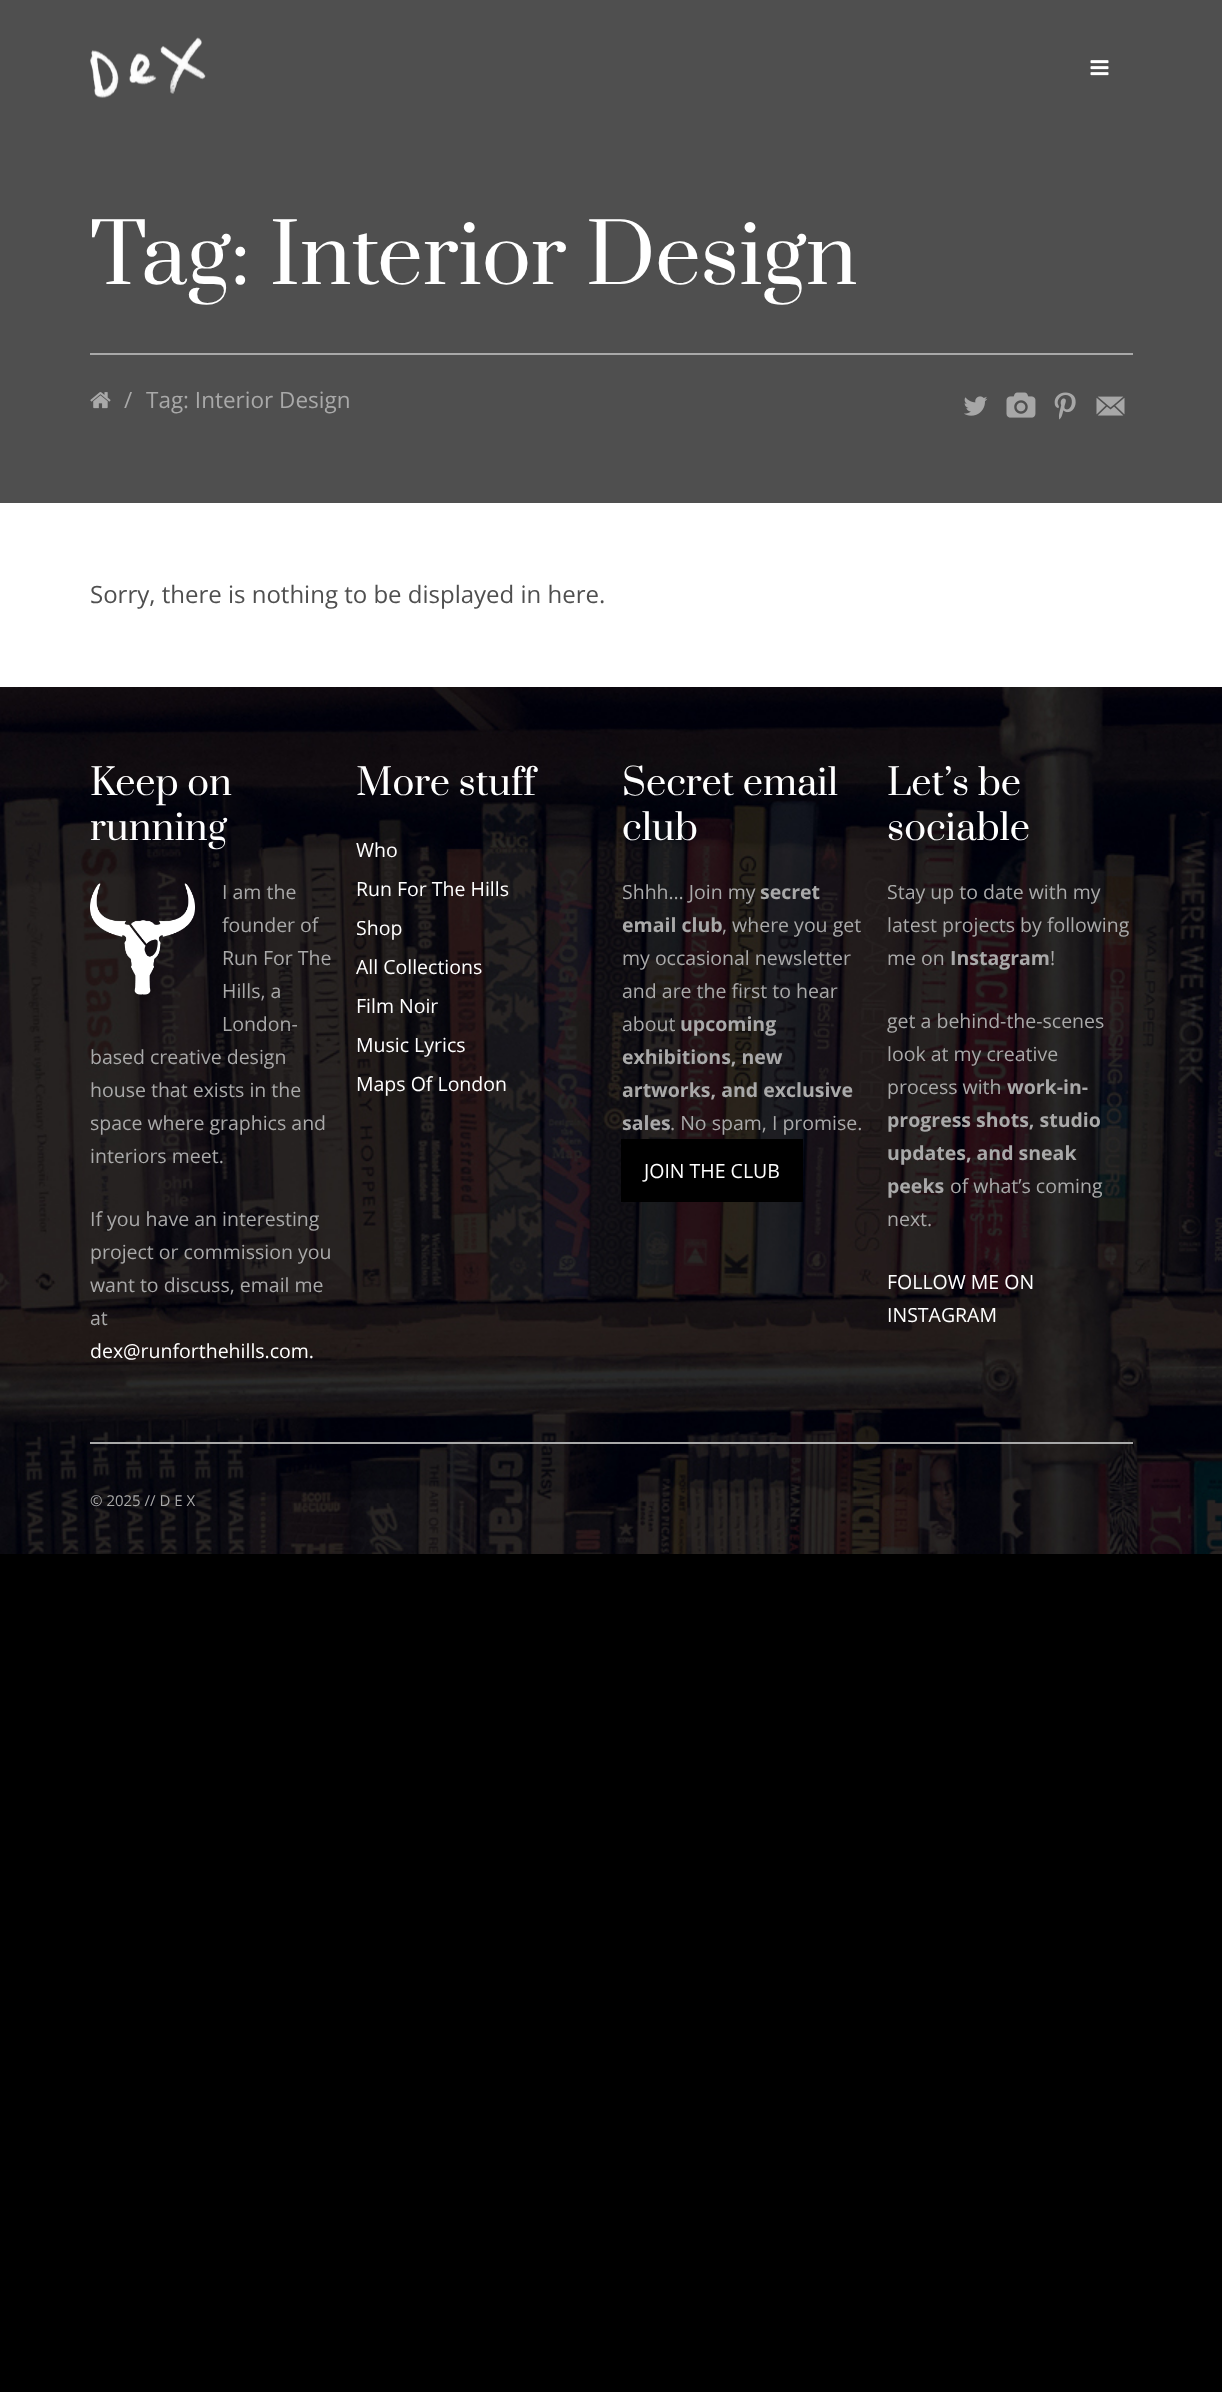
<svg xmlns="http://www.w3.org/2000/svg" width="1222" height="2392">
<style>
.a{font:81px Prata;fill:#fff}
.b{font:22.5px Open Sans;fill:#a9a9a9}
.c{font:24px Open Sans;fill:#4f4f4f}
.d{font:36px Prata;fill:#fff}
.e{font:19.5px Open Sans;fill:#a9a9a9}
.f{font:19.5px Open Sans;fill:#fff}
.g{font:bold 19.5px Open Sans;fill:#a9a9a9}
.h{font:15px Open Sans;fill:#a9a9a9}
</style>
<rect width="100%" height="100%" fill="#000"/>
<path fill="#4f4f4f" d="M0 0h1222v503H0z"/>
<image href="1.png" x="90" y="37" width="116" height="61"/>
<image href="2.png" x="1090" y="60" width="19" height="16"/>
<path fill="#a9a9a9" d="M90 353h1043v2H90z"/>
<image href="3.png" x="90" y="392" width="21" height="17"/>
<image href="4.png" x="964" y="396" width="24" height="20"/>
<image href="5.png" x="1006" y="392" width="30" height="26"/>
<image href="6.png" x="1054" y="392" width="22" height="28"/>
<image href="7.png" x="1096" y="396" width="29" height="20"/>
<path fill="#fff" d="M0 503h1222v184H0z"/>
<image href="8.png" x="0" y="687" width="1222" height="867"/>
<image href="9.png" x="90" y="883" width="105" height="112"/>
<path fill="#000" d="M621 1139h182v63H621z"/>
<path fill="#a9a9a9" d="M90 1442h1043v2H90z"/>
<text class="a" x="90" y="284">Tag: Interior Design</text>
<text class="b" x="124" y="408">/</text>
<text class="b" x="146" y="408">Tag: Interior Design</text>
<text class="c" x="90" y="603">Sorry, there is nothing to be displayed in here.</text>
<text class="d" x="90" y="795">Keep on</text>
<text class="d" x="90" y="840">running</text>
<text class="e" x="222" y="899">I am the</text>
<text class="e" x="222" y="932">founder of</text>
<text class="e" x="222" y="965">Run For The</text>
<text class="e" x="222" y="998">Hills, a</text>
<text class="e" x="222" y="1031">London-</text>
<text class="e" x="90" y="1064">based creative design</text>
<text class="e" x="90" y="1097">house that exists in the</text>
<text class="e" x="90" y="1130">space where graphics and</text>
<text class="e" x="90" y="1163">interiors meet.</text>
<text class="e" x="90" y="1226">If you have an interesting</text>
<text class="e" x="90" y="1259">project or commission you</text>
<text class="e" x="90" y="1292">want to discuss, email me</text>
<text class="e" x="90" y="1325">at</text>
<text class="f" x="90" y="1358">dex@runforthehills.com.</text>
<text class="d" x="356" y="795">More stuff</text>
<text class="f" x="356" y="857">Who</text>
<text class="f" x="356" y="896">Run For The Hills</text>
<text class="f" x="356" y="935">Shop</text>
<text class="f" x="356" y="974">All Collections</text>
<text class="f" x="356" y="1013">Film Noir</text>
<text class="f" x="356" y="1052">Music Lyrics</text>
<text class="f" x="356" y="1091">Maps Of London</text>
<text class="d" x="622" y="795">Secret email</text>
<text class="d" x="622" y="840">club</text>
<text class="e" x="622" y="899">Shhh… Join my</text>
<text class="g" x="760" y="899">secret</text>
<text class="g" x="622" y="932">email club</text>
<text class="e" x="722" y="932">, where you get</text>
<text class="e" x="622" y="965">my occasional newsletter</text>
<text class="e" x="622" y="998">and are the first to hear</text>
<text class="e" x="622" y="1031">about</text>
<text class="g" x="680" y="1031">upcoming</text>
<text class="g" x="622" y="1064">exhibitions, new</text>
<text class="g" x="622" y="1097">artworks, and exclusive</text>
<text class="g" x="622" y="1130">sales</text>
<text class="e" x="670" y="1130">. No spam, I promise.</text>
<text class="f" x="644" y="1178">JOIN THE CLUB</text>
<text class="d" x="887" y="795">Let’s be</text>
<text class="d" x="887" y="840">sociable</text>
<text class="e" x="887" y="899">Stay up to date with my</text>
<text class="e" x="887" y="932">latest projects by following</text>
<text class="e" x="887" y="965">me on</text>
<text class="g" x="950" y="965">Instagram</text>
<text class="e" x="1050" y="965">!</text>
<text class="e" x="887" y="1028">get a behind-the-scenes</text>
<text class="e" x="887" y="1061">look at my creative</text>
<text class="e" x="887" y="1094">process with</text>
<text class="g" x="1007" y="1094">work-in-</text>
<text class="g" x="887" y="1127">progress shots, studio</text>
<text class="g" x="887" y="1160">updates, and sneak</text>
<text class="g" x="887" y="1193">peeks</text>
<text class="e" x="950" y="1193">of what’s coming</text>
<text class="e" x="887" y="1226">next.</text>
<text class="f" x="887" y="1289">FOLLOW ME ON</text>
<text class="f" x="887" y="1322">INSTAGRAM</text>
<text class="h" x="90" y="1506">© 2025 // D E X</text>
</svg>
